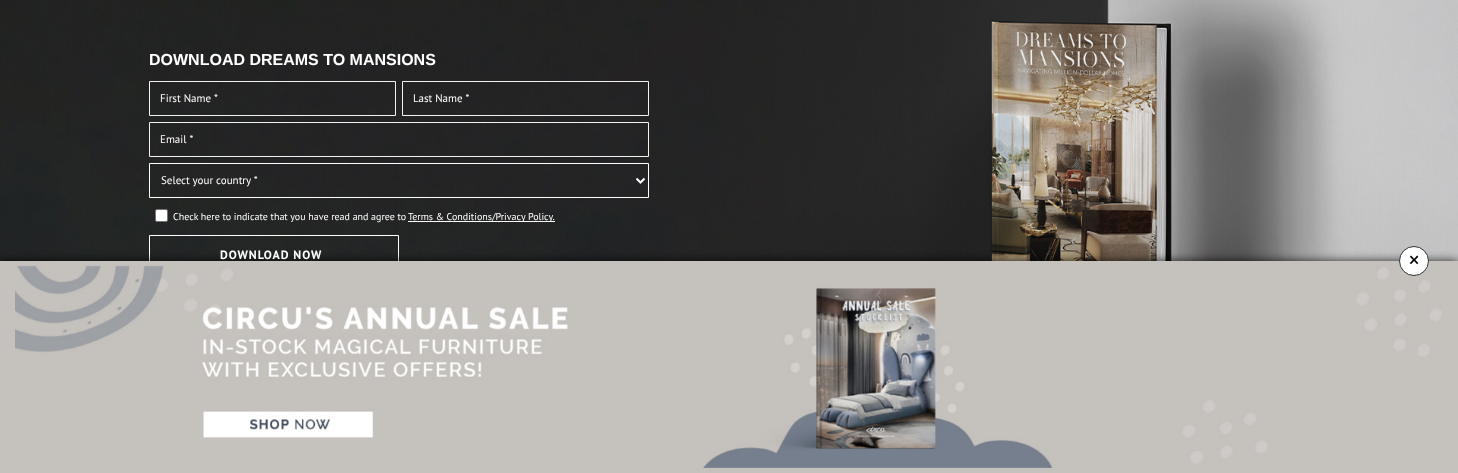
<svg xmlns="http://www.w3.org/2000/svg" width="1458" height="473">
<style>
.a{font:bold 16px Liberation Sans;fill:#fff}
.b{font:11px PT Sans;fill:#fff}
.c{font:10px PT Sans;fill:#fff}
.d{font:bold 12px PT Sans;letter-spacing:1px;fill:#fff}
.e{font:24px PT Sans;fill:#000}
</style>
<rect width="100%" height="100%" fill="#fff"/>
<image href="1.png" x="0" y="0" width="1458" height="261"/>
<path fill="none" stroke="#f2f2f2" d="M149.5 81.5h246v34H149.5z"/>
<path fill="none" stroke="#f2f2f2" d="M402.5 81.5h246v34H402.5z"/>
<path fill="none" stroke="#f2f2f2" d="M149.5 122.5h499v34H149.5z"/>
<path fill="none" stroke="#fff" d="M149.5 163.5h499v34H149.5z"/>
<path fill="none" stroke="#fff" stroke-width="2" d="M636.5 178.5l4 4l4-4"/>
<rect fill="#fff" stroke="#767676" x="155.5" y="209.5" width="12" height="12" rx="1.5"/>
<path fill="#fff" d="M408 221h147v1H408z"/>
<path fill="none" stroke="#fff" d="M149.5 235.5h249v39H149.5z"/>
<path fill="#000000cc" filter="blur(5px)" d="M0 261h1458v212H0z"/>
<path fill="#c5c2bd" d="M0 261h1458v212H0z"/>
<image href="2.png" x="15" y="265" width="1427" height="203"/>
<circle fill="#fff" stroke="#333" cx="1414" cy="261" r="14.5"/>
<text class="a" x="149" y="65">DOWNLOAD DREAMS TO MANSIONS</text>
<text class="b" x="160" y="102">First Name *</text>
<text class="b" x="413" y="102">Last Name *</text>
<text class="b" x="160" y="143">Email *</text>
<text class="b" x="161" y="184">Select your country *</text>
<text class="c" x="173" y="220">Check here to indicate that you have read and agree to</text>
<text class="c" x="408" y="220">Terms &amp; Conditions/Privacy Policy.</text>
<text class="d" x="220" y="259">DOWNLOAD NOW</text>
<text class="e" x="1408" y="268">×</text>
</svg>
